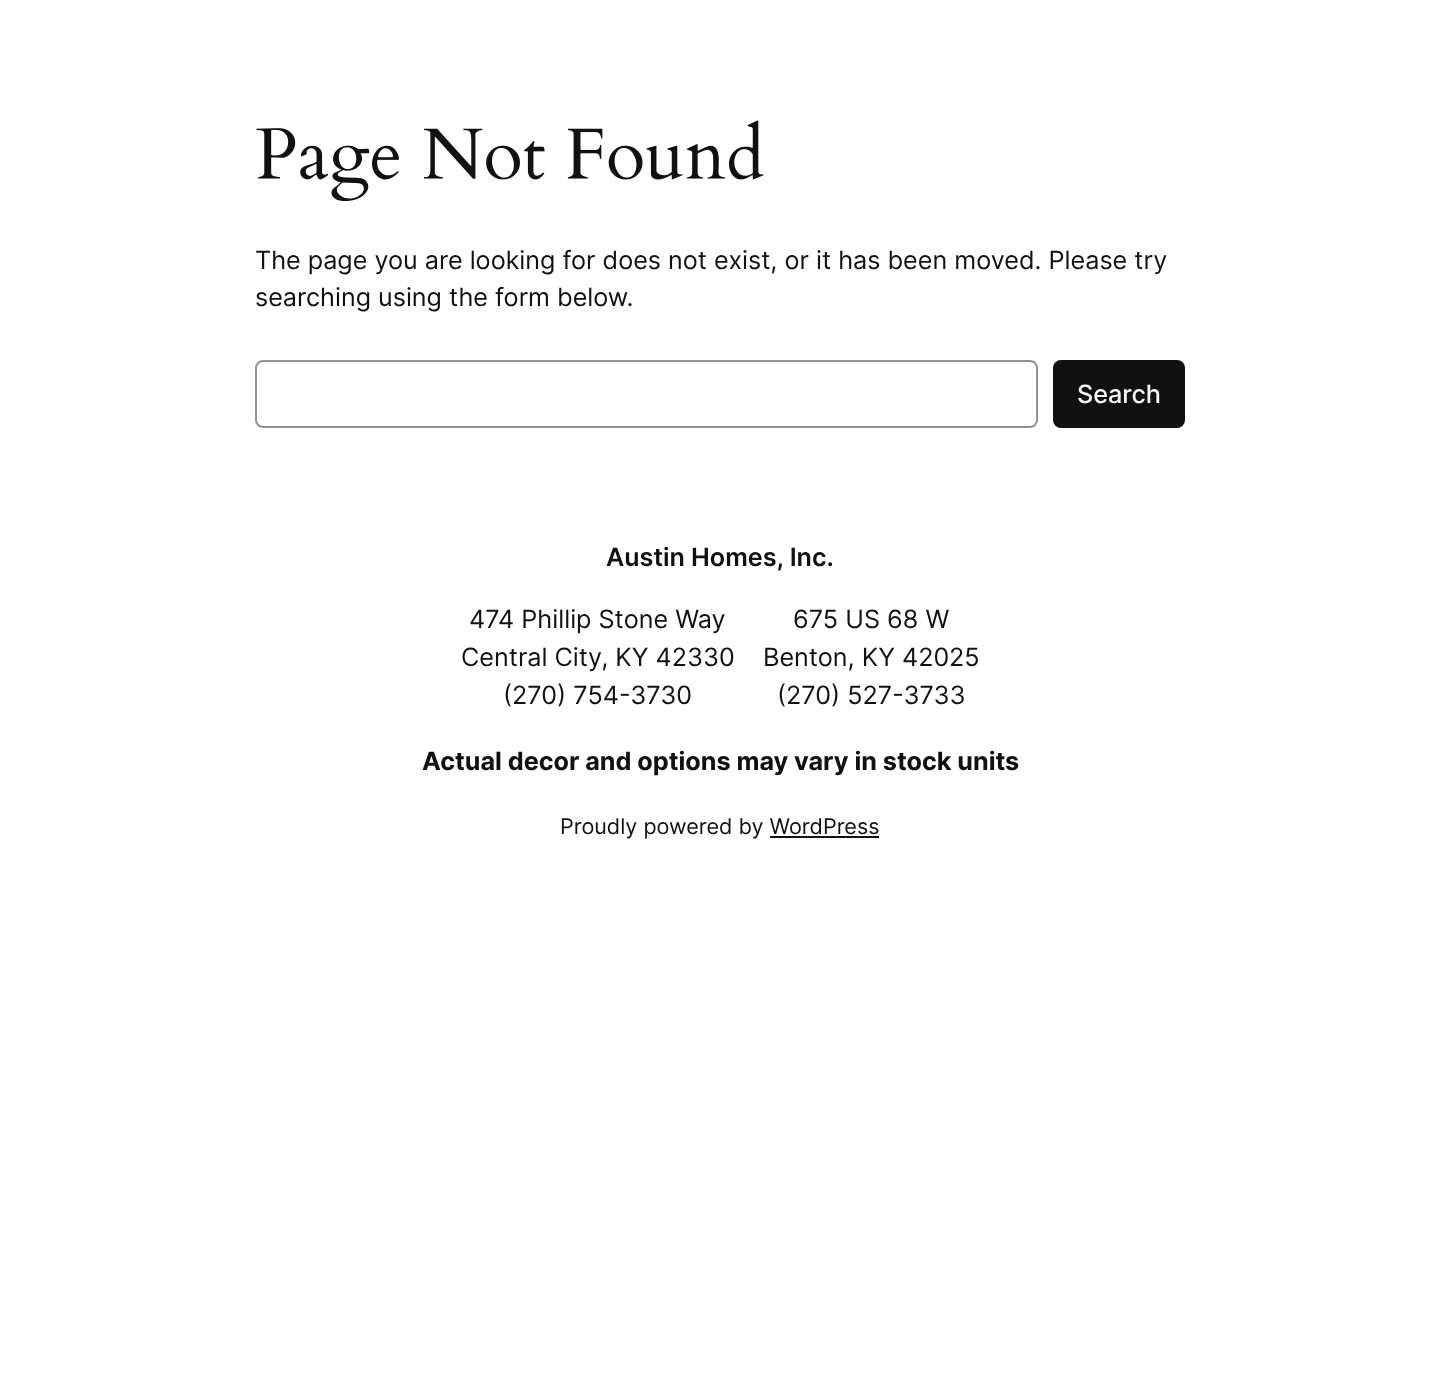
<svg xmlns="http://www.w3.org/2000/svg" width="1440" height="1375">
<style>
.a{font:25.2px Inter;fill:#111}
.b{font:500 25.2px Inter;fill:#f9f9f9}
.c{font:600 25.2px Inter;fill:#111}
.d{font:bold 25.2px Inter;fill:#111}
.e{font:21.6px Inter;fill:#111}
</style>
<rect width="100%" height="100%" fill="#fff"/>
<image href="1.png" x="256" y="120" width="508" height="82"/>
<rect fill="none" stroke="#949494" stroke-width="2" x="256" y="361" width="781" height="66" rx="7"/>
<rect fill="#111" x="1053" y="360" width="132" height="68" rx="8"/>
<path fill="#111" d="M770 836h109v2H770z"/>
<text class="a" x="255" y="269">The page you are looking for does not exist, or it has been moved. Please try</text>
<text class="a" x="255" y="306">searching using the form below.</text>
<text class="b" x="1077" y="403">Search</text>
<text class="c" x="606" y="566">Austin Homes, Inc.</text>
<text class="a" x="469" y="628">474 Phillip Stone Way</text>
<text class="a" x="461" y="666">Central City, KY 42330</text>
<text class="a" x="503" y="704">(270) 754-3730</text>
<text class="a" x="793" y="628">675 US 68 W</text>
<text class="a" x="763" y="666">Benton, KY 42025</text>
<text class="a" x="777" y="704">(270) 527-3733</text>
<text class="d" x="422" y="770">Actual decor and options may vary in stock units</text>
<text class="e" x="560" y="834">Proudly powered by WordPress</text>
</svg>
